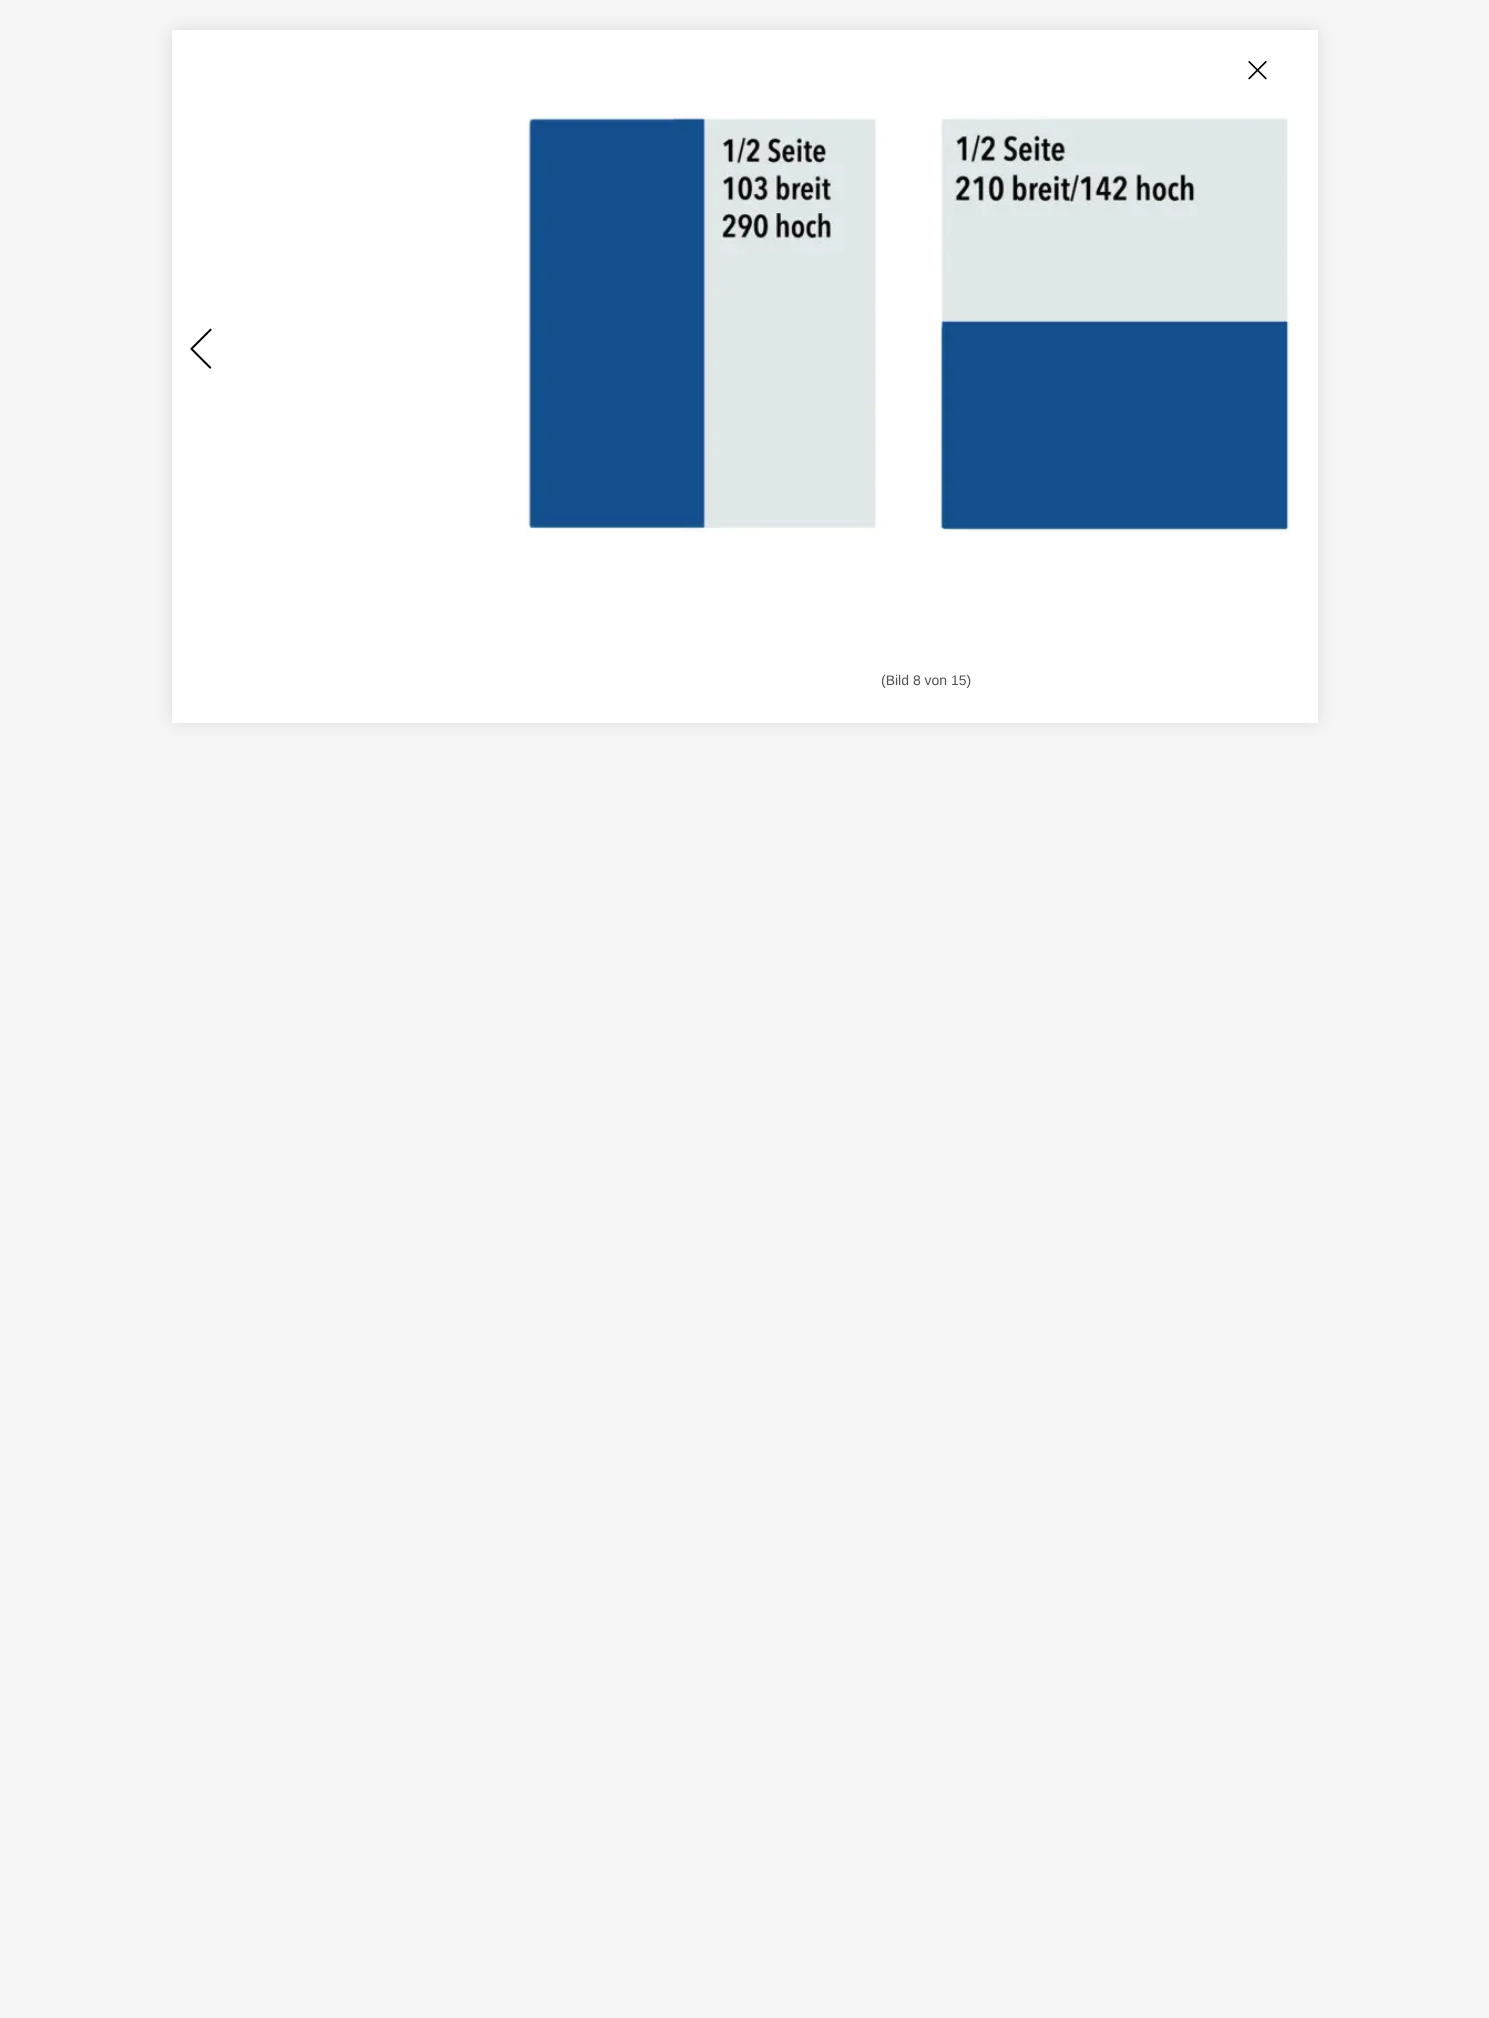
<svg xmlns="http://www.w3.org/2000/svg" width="1489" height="2018">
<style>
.a{font:14px Liberation Sans;fill:#535353}
</style>
<rect width="100%" height="100%" fill="#f5f5f5"/>
<path fill="#0000001a" filter="blur(8px)" d="M172 30h1146v693H172z"/>
<path fill="#fff" d="M172 30h1146v693H172z"/>
<image href="1.png" x="1248" y="61" width="19" height="19"/>
<image href="2.png" x="190" y="328" width="22" height="41"/>
<image href="3.png" x="525" y="113" width="765" height="422"/>
<text class="a" x="881" y="685">(Bild 8 von 15)</text>
</svg>
